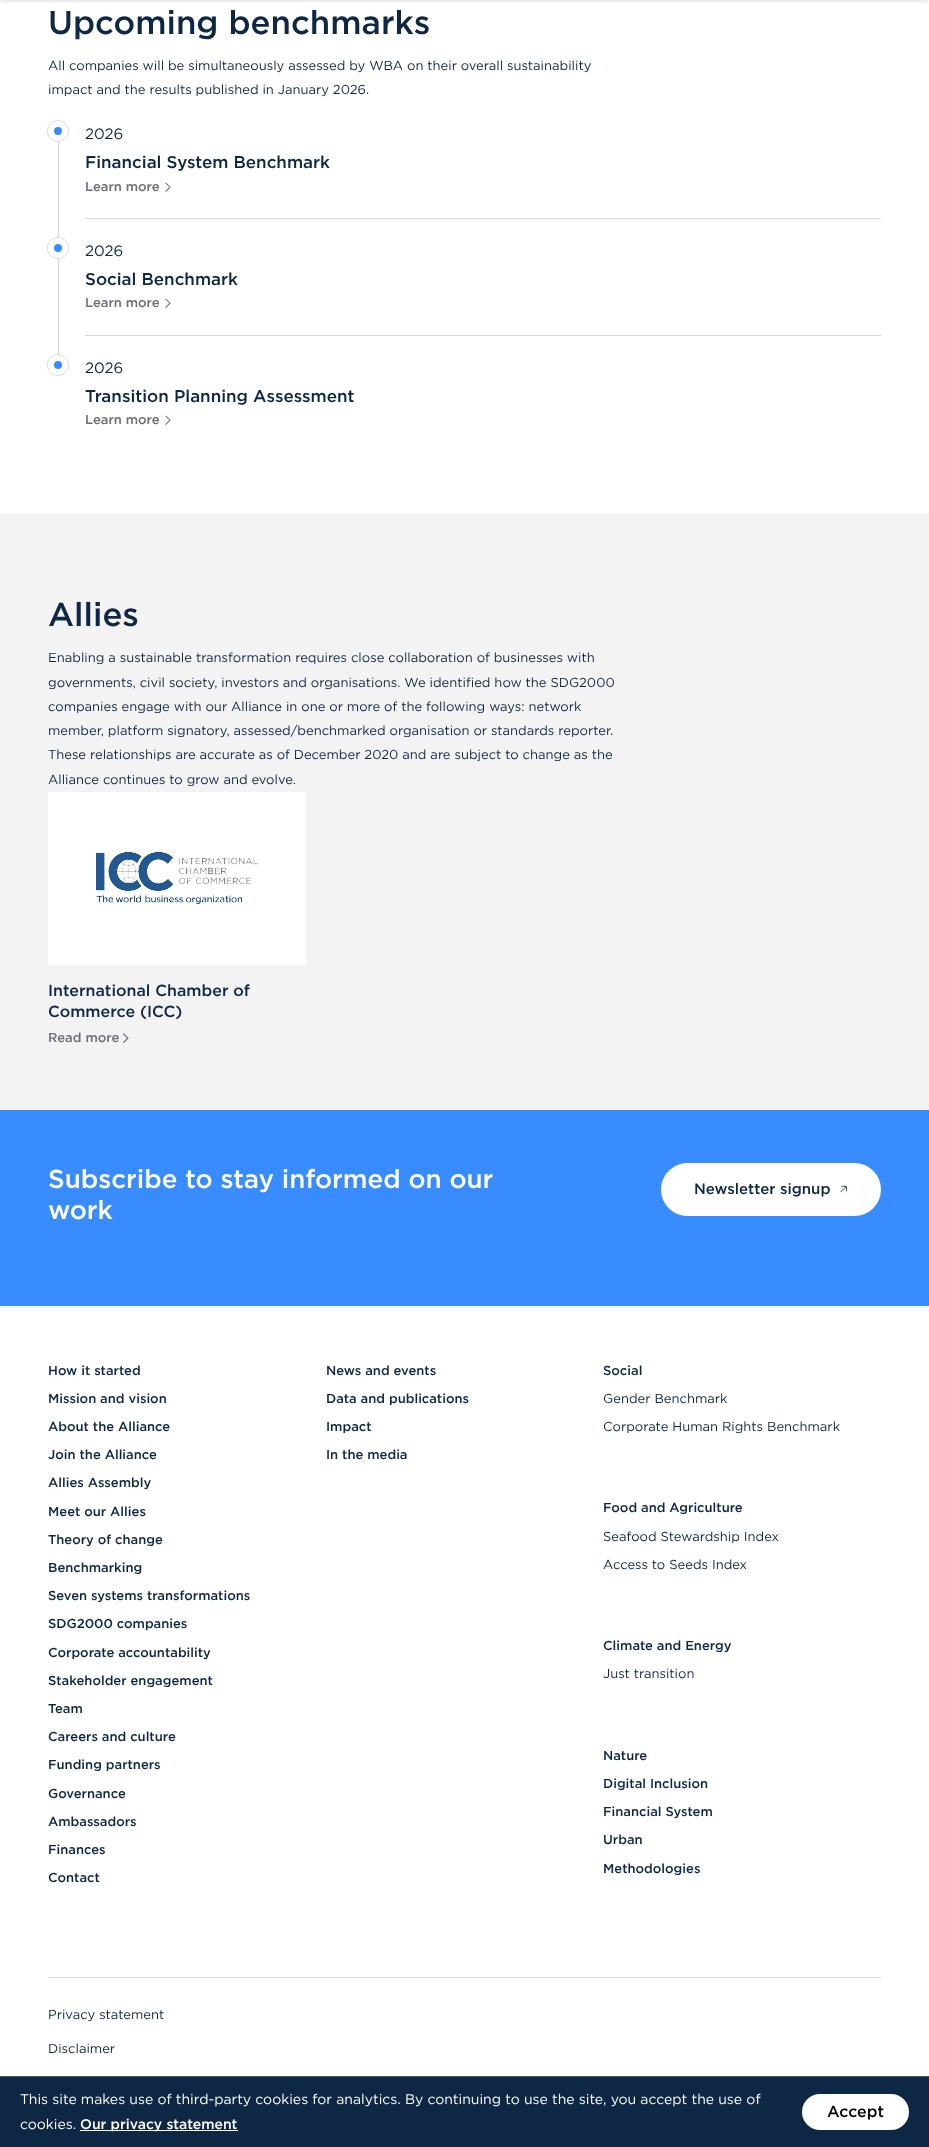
<svg xmlns="http://www.w3.org/2000/svg" width="929" height="2147">
<style>
.a{font:300 33px 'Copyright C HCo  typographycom';fill:#0d2745}
.b{font:300 13px 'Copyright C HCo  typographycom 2';fill:#0d2745}
.c{font:300 15px 'Copyright C HCo  typographycom 2';fill:#0d2745}
.d{font:300 17px 'Copyright C HCo  typographycom';fill:#0d2745}
.e{font:300 13px 'Copyright C HCo  typographycom';fill:#6d6d78}
.f{font:300 16px 'Copyright C HCo  typographycom';fill:#0d2745}
.g{font:300 26px 'Copyright C HCo  typographycom';fill:#fff}
.h{font:300 15px 'Copyright C HCo  typographycom';fill:#0d2745}
.i{font:300 13px 'Copyright C HCo  typographycom';fill:#0d2745}
.j{font:300 14px 'Copyright C HCo  typographycom 2';fill:#fff}
.k{font:300 14px 'Copyright C HCo  typographycom';fill:#fff}
.l{font:300 16px 'Copyright C HCo  typographycom';fill:#000}
</style>
<rect width="100%" height="100%" fill="#fff"/>
<path fill="#2d2d2d40" filter="blur(2.5px)" d="M0 -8h929v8H0z"/>
<path fill="#d7d7d7" d="M58 121h1v234H58z"/>
<circle fill="none" stroke="#d7d7d7" cx="58" cy="131" r="10.5"/>
<circle fill="#388cff" stroke="#fff" stroke-width="6" cx="58" cy="131" r="7"/>
<path fill="#d7d7d7" d="M85 218h796v1H85z"/>
<image href="1.png" x="165" y="182" width="6" height="10"/>
<circle fill="none" stroke="#d7d7d7" cx="58" cy="248" r="10.5"/>
<circle fill="#388cff" stroke="#fff" stroke-width="6" cx="58" cy="248" r="7"/>
<path fill="#d7d7d7" d="M85 335h796v1H85z"/>
<image href="1.png" x="165" y="298" width="6" height="10"/>
<circle fill="none" stroke="#d7d7d7" cx="58" cy="365" r="10.5"/>
<circle fill="#388cff" stroke="#fff" stroke-width="6" cx="58" cy="365" r="7"/>
<image href="1.png" x="165" y="415" width="6" height="10"/>
<path fill="#f3f3f3" d="M0 514h929v596H0z"/>
<path fill="#fff" d="M48 792h258v173H48z"/>
<image href="2.png" x="96" y="851" width="162" height="53"/>
<image href="3.png" x="123" y="1033" width="6" height="10"/>
<path fill="#388cff" d="M0 1110h929v196H0z"/>
<rect fill="#fff" x="661" y="1163" width="220" height="53" rx="26.5"/>
<image href="4.png" x="839" y="1185" width="8" height="8"/>
<path fill="#d7d7d7" d="M48 1977h833v1H48z"/>
<path fill="#0d2745" d="M0 2077h929v70H0z"/>
<path fill="#3d526a" d="M0 2076h929v1H0z"/>
<path fill="#fff" d="M80 2130h158v1H80z"/>
<rect fill="#fff" x="802" y="2094" width="107" height="36" rx="18"/>
<text class="a" x="48" y="34">Upcoming benchmarks</text>
<text class="b" x="48" y="70">All companies will be simultaneously assessed by WBA on their overall sustainability</text>
<text class="b" x="48" y="94">impact and the results published in January 2026.</text>
<text class="c" x="85" y="139">2026</text>
<text class="d" x="85" y="168">Financial System Benchmark</text>
<text class="e" x="85" y="191">Learn more</text>
<text class="c" x="85" y="256">2026</text>
<text class="d" x="85" y="285">Social Benchmark</text>
<text class="e" x="85" y="307">Learn more</text>
<text class="c" x="85" y="373">2026</text>
<text class="d" x="85" y="402">Transition Planning Assessment</text>
<text class="e" x="85" y="424">Learn more</text>
<text class="a" x="48" y="626">Allies</text>
<text class="b" x="48" y="662">Enabling a sustainable transformation requires close collaboration of businesses with</text>
<text class="b" x="48" y="687">governments, civil society, investors and organisations. We identified how the SDG2000</text>
<text class="b" x="48" y="711">companies engage with our Alliance in one or more of the following ways: network</text>
<text class="b" x="48" y="735">member, platform signatory, assessed/benchmarked organisation or standards reporter.</text>
<text class="b" x="48" y="759">These relationships are accurate as of December 2020 and are subject to change as the</text>
<text class="b" x="48" y="784">Alliance continues to grow and evolve.</text>
<text class="f" x="48" y="996">International Chamber of</text>
<text class="f" x="48" y="1017">Commerce (ICC)</text>
<text class="e" x="48" y="1042">Read more</text>
<text class="g" x="48" y="1188">Subscribe to stay informed on our</text>
<text class="g" x="48" y="1219">work</text>
<text class="h" x="694" y="1194">Newsletter signup</text>
<text class="i" x="48" y="1375">How it started</text>
<text class="i" x="48" y="1403">Mission and vision</text>
<text class="i" x="48" y="1431">About the Alliance</text>
<text class="i" x="48" y="1459">Join the Alliance</text>
<text class="i" x="48" y="1487">Allies Assembly</text>
<text class="i" x="48" y="1516">Meet our Allies</text>
<text class="i" x="48" y="1544">Theory of change</text>
<text class="i" x="48" y="1572">Benchmarking</text>
<text class="i" x="48" y="1600">Seven systems transformations</text>
<text class="i" x="48" y="1628">SDG2000 companies</text>
<text class="i" x="48" y="1657">Corporate accountability</text>
<text class="i" x="48" y="1685">Stakeholder engagement</text>
<text class="i" x="48" y="1713">Team</text>
<text class="i" x="48" y="1741">Careers and culture</text>
<text class="i" x="48" y="1769">Funding partners</text>
<text class="i" x="48" y="1798">Governance</text>
<text class="i" x="48" y="1826">Ambassadors</text>
<text class="i" x="48" y="1854">Finances</text>
<text class="i" x="48" y="1882">Contact</text>
<text class="i" x="326" y="1375">News and events</text>
<text class="i" x="326" y="1403">Data and publications</text>
<text class="i" x="326" y="1431">Impact</text>
<text class="i" x="326" y="1459">In the media</text>
<text class="i" x="603" y="1375">Social</text>
<text class="b" x="603" y="1403">Gender Benchmark</text>
<text class="b" x="603" y="1431">Corporate Human Rights Benchmark</text>
<text class="i" x="603" y="1512">Food and Agriculture</text>
<text class="b" x="603" y="1541">Seafood Stewardship Index</text>
<text class="b" x="603" y="1569">Access to Seeds Index</text>
<text class="i" x="603" y="1650">Climate and Energy</text>
<text class="b" x="603" y="1678">Just transition</text>
<text class="i" x="603" y="1760">Nature</text>
<text class="i" x="603" y="1788">Digital Inclusion</text>
<text class="i" x="603" y="1816">Financial System</text>
<text class="i" x="603" y="1844">Urban</text>
<text class="i" x="603" y="1873">Methodologies</text>
<text class="b" x="48" y="2019">Privacy statement</text>
<text class="b" x="48" y="2053">Disclaimer</text>
<text class="j" x="20" y="2104">This site makes use of third-party cookies for analytics. By continuing to use the site, you accept the use of</text>
<text class="j" x="20" y="2129">cookies.</text>
<text class="k" x="80" y="2129">Our privacy statement</text>
<text class="l" x="827" y="2117">Accept</text>
</svg>
